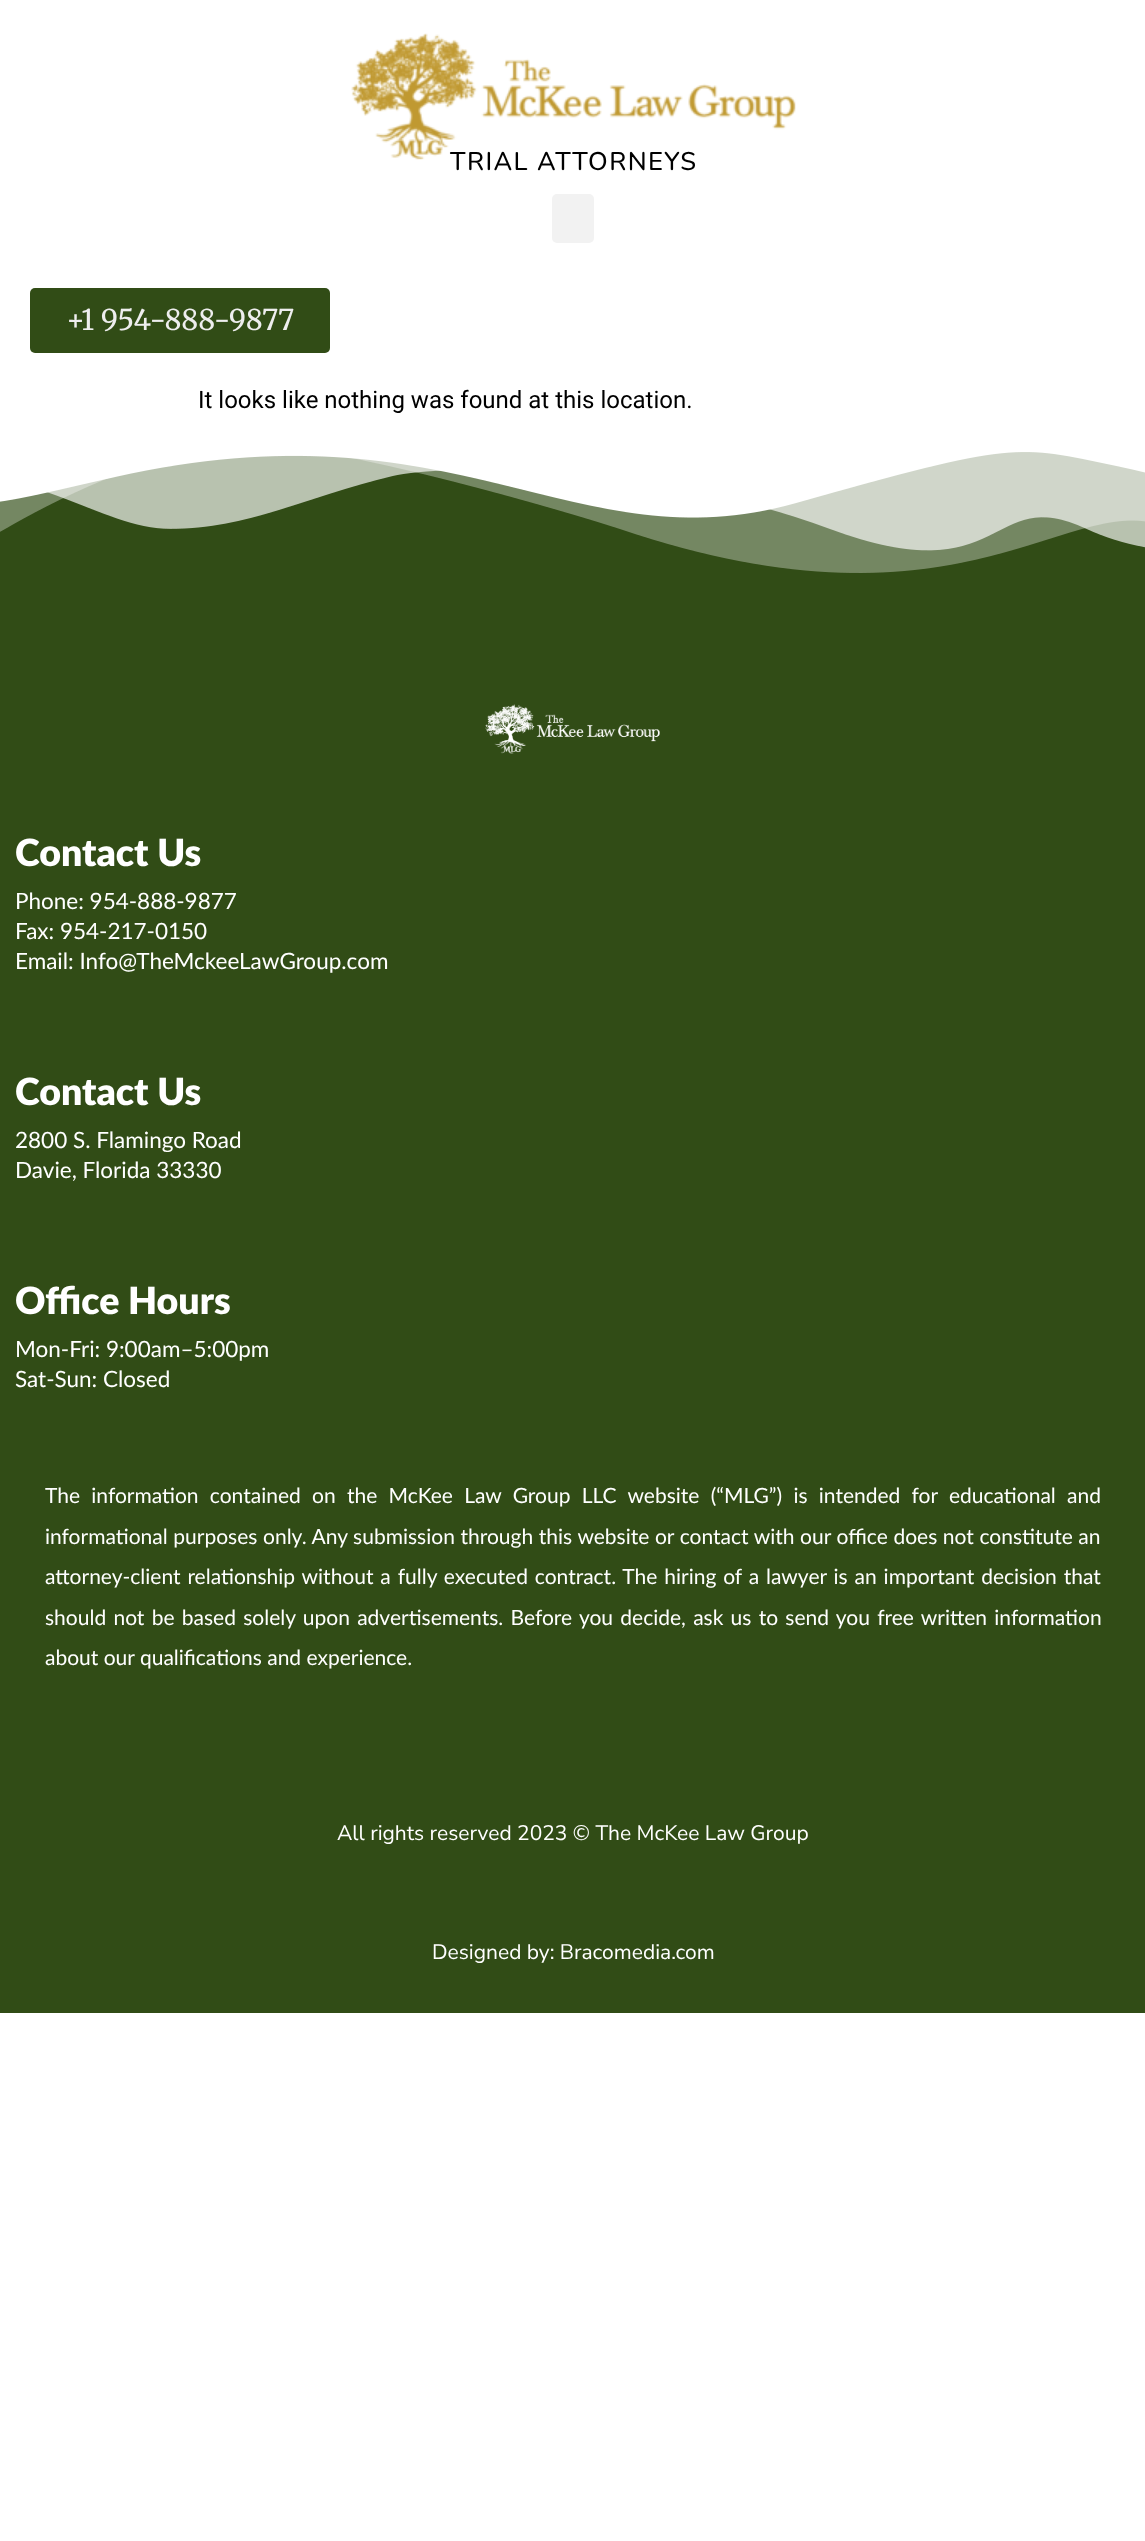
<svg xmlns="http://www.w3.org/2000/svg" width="1145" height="2541">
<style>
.a{font:500 25.5px Nunito;letter-spacing:1.4px;fill:#000}
.b{font:28.5px Merriweather;fill:#eee}
.c{font:24px Roboto;fill:#000}
.d{font:800 37.5px Lato;fill:#fff}
.e{font:22.5px Lato;fill:#fff}
.f{font:21px Lato;fill:#fff}
.g{font:21px Nunito Sans;fill:#fff}
</style>
<rect width="100%" height="100%" fill="#fff"/>
<image href="1.png" x="351" y="33" width="445" height="127"/>
<rect fill="#f2f2f2" x="552" y="194" width="42" height="49" rx="5"/>
<rect fill="#314c16" x="30" y="288" width="300" height="65" rx="5"/>
<path fill="#314c16" d="M0 452h1145v1561H0z"/>
<image href="2.png" x="0" y="440" width="1145" height="133"/>
<image href="3.png" x="485" y="704" width="175" height="50"/>
<text class="a" x="450" y="170">TRIAL ATTORNEYS</text>
<text class="b" x="66" y="330">+1 954-888-9877</text>
<text class="c" x="198" y="408">It looks like nothing was found at this location.</text>
<text class="d" x="15" y="866">Contact Us</text>
<text class="e" x="15" y="909">Phone: 954-888-9877</text>
<text class="e" x="15" y="939">Fax: 954-217-0150</text>
<text class="e" x="15" y="969">Email: Info@TheMckeeLawGroup.com</text>
<text class="d" x="15" y="1105">Contact Us</text>
<text class="e" x="15" y="1148">2800 S. Flamingo Road</text>
<text class="e" x="15" y="1178">Davie, Florida 33330</text>
<text class="d" x="15" y="1314">Office Hours</text>
<text class="e" x="15" y="1357">Mon-Fri: 9:00am–5:00pm</text>
<text class="e" x="15" y="1387">Sat-Sun: Closed</text>
<text class="f" x="45" y="1503" word-spacing="5.9">The information contained on the McKee Law Group LLC website (“MLG”) is intended for educational and</text>
<text class="f" x="45" y="1544" word-spacing="0.25">informational purposes only. Any submission through this website or contact with our office does not constitute an</text>
<text class="f" x="45" y="1584" word-spacing="1.5">attorney-client relationship without a fully executed contract. The hiring of a lawyer is an important decision that</text>
<text class="f" x="45" y="1625" word-spacing="1.9">should not be based solely upon advertisements. Before you decide, ask us to send you free written information</text>
<text class="f" x="45" y="1665">about our qualifications and experience.</text>
<text class="g" x="337" y="1840">All rights reserved 2023 © The McKee Law Group</text>
<text class="g" x="432" y="1959">Designed by: Bracomedia.com</text>
</svg>
